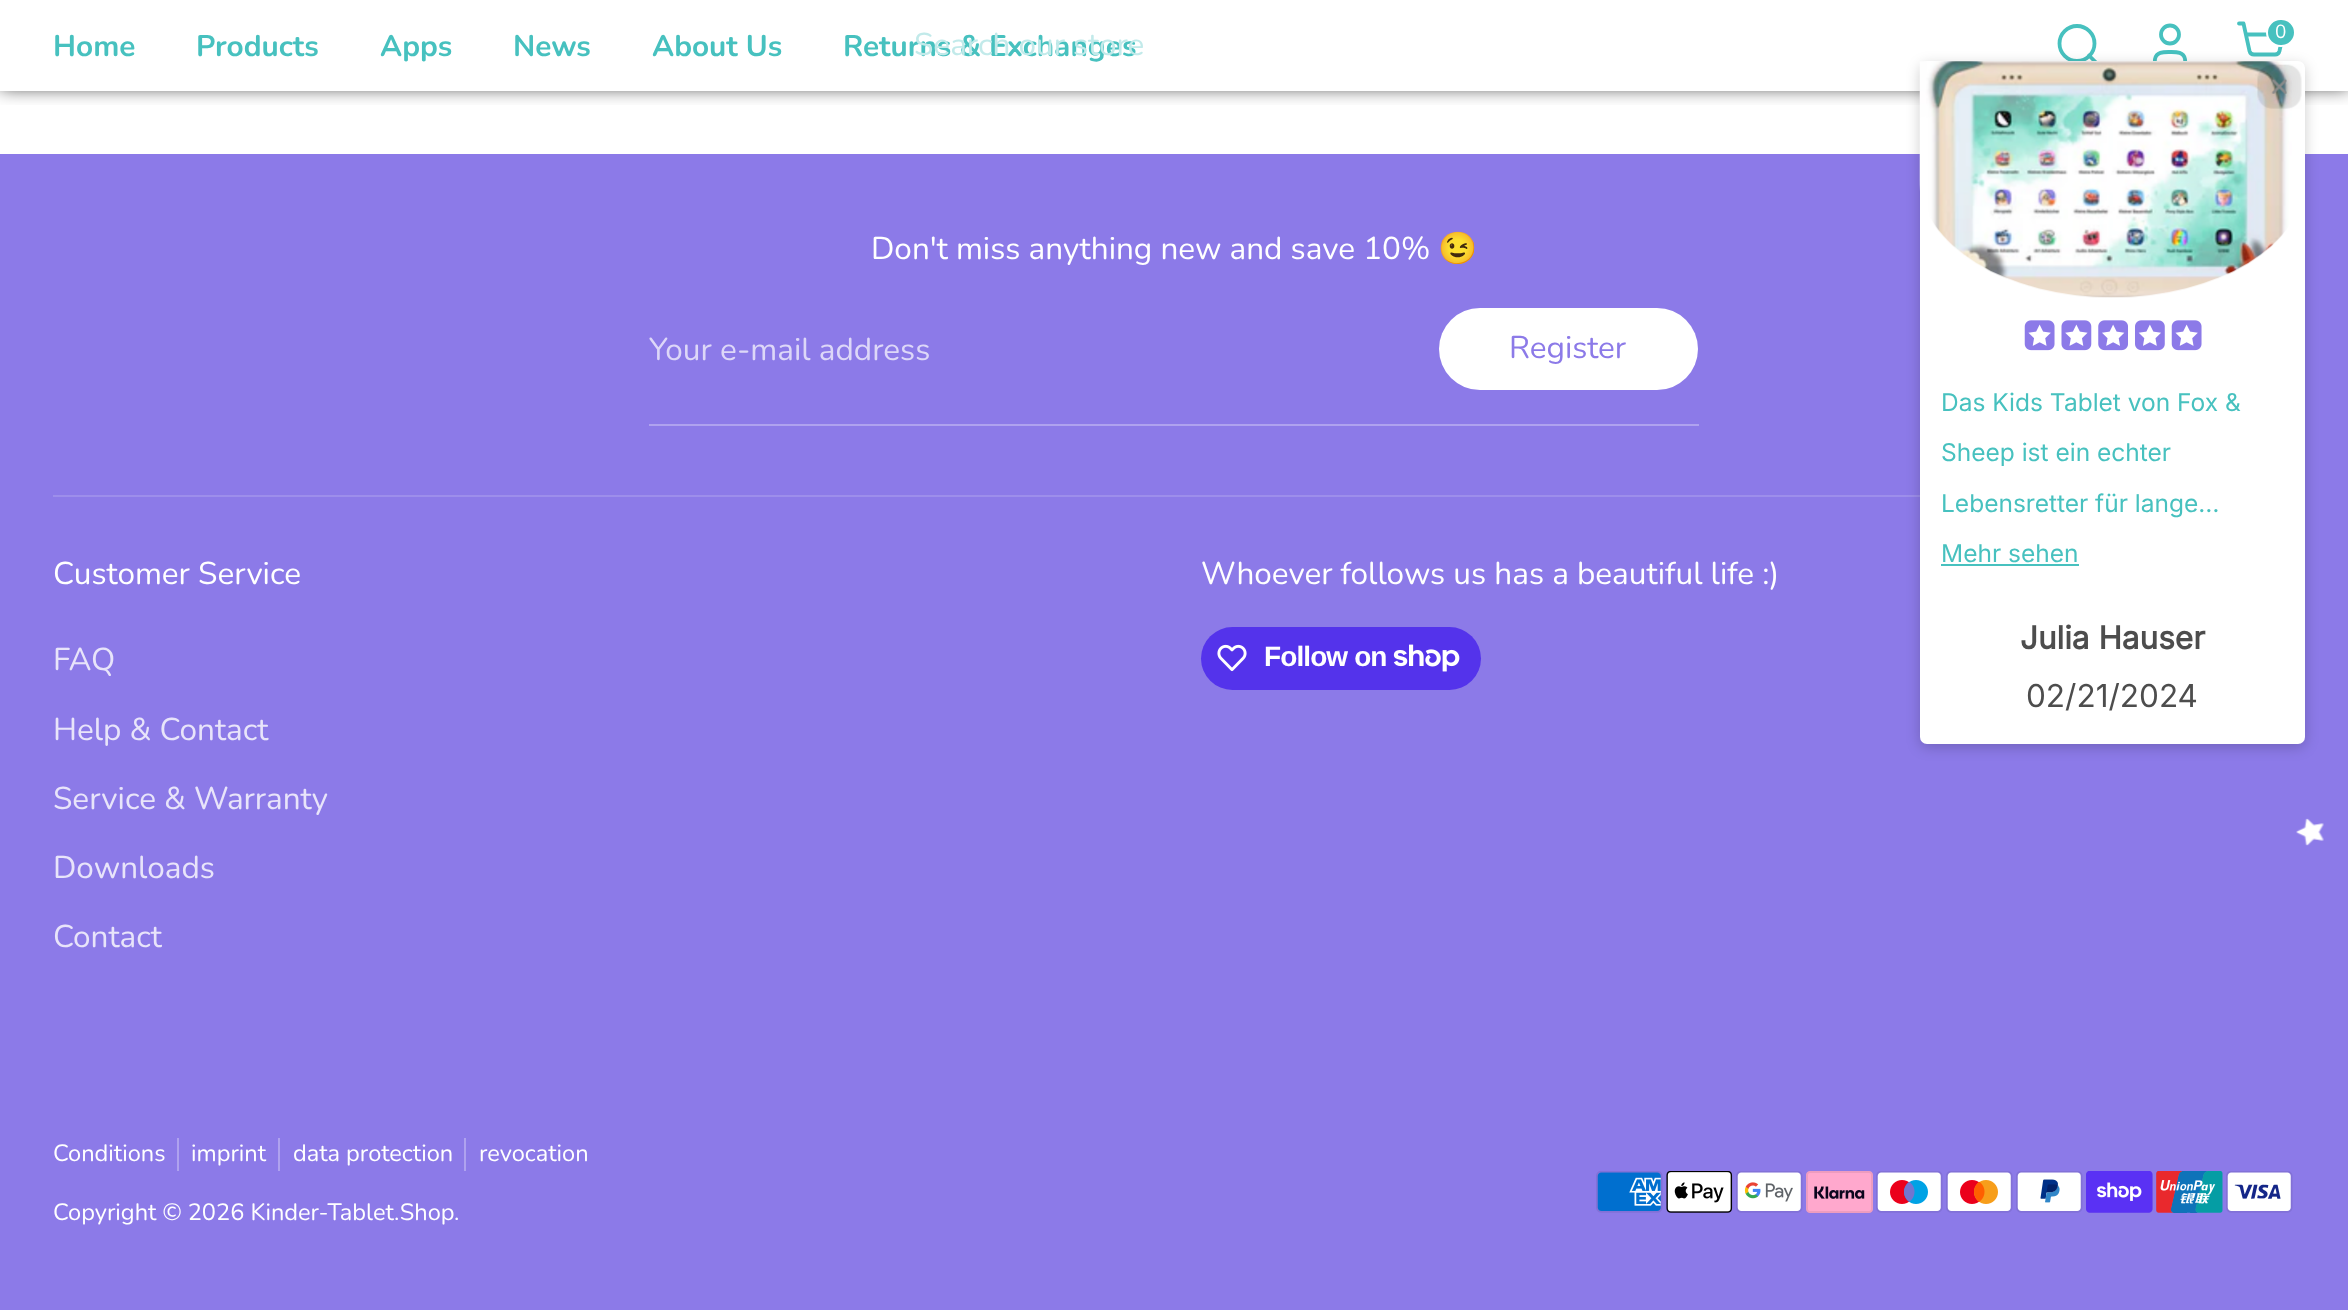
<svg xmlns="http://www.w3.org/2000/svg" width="2348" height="1310">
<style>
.a{font:bold 29.75px Nunito;fill:#47c1bf}
.b{font:31.5px Nunito;fill:#c2eaea}
.c{font:19px Nunito;fill:#fff}
.d{font:31.5px Nunito;fill:#fff}
.e{font:31.5px Noto Color Emoji;fill:#fff}
.f{font:31.5px Nunito;fill:#ddd7f8}
.g{font:31.5px Nunito;fill:#8c7ae8}
.h{font:31.5px Nunito;fill:#e8e4fa}
.i{font:bold 28px Liberation Sans;letter-spacing:-0.9px;fill:#fff}
.j{font:23.6px Nunito;fill:#fff}
.k{font:24.5px Inter;fill:#47c1bf}
.l{font:bold 31.5px Inter;fill:#4d4d4d}
.m{font:31.5px Inter;fill:#4d4d4d}
</style>
<defs>
<clipPath id="clip1"><path d="M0 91h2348v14H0z"/></clipPath>
</defs>
<rect width="100%" height="100%" fill="#fff"/>
<g clip-path="url(#clip1)">
<path fill="#000000bf" filter="blur(9px)" d="M0 -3h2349v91H0z"/>
</g>
<circle fill="none" stroke="#47c1bf" stroke-width="3.8" cx="2077" cy="43.5" r="17.5"/>
<path fill="none" stroke="#47c1bf" stroke-width="3.8" stroke-linecap="round" stroke-linejoin="round" d="M2098.5 65l-9.5-9.5"/>
<path fill="none" stroke="#47c1bf" stroke-width="3.8" stroke-linecap="round" stroke-linejoin="round" d="M2185.5 65l-.5-6c-1.5-7.5-9-7-15-7c-6 0-13.5-.5-15 7l-.5 6"/>
<circle fill="none" stroke="#47c1bf" stroke-width="3.8" cx="2170" cy="34.5" r="9"/>
<path fill="none" stroke="#47c1bf" stroke-width="3.8" stroke-linecap="round" stroke-linejoin="round" d="M2239 23.5h4.5l6 27.5c.5 2 2 3.5 4.5 3.5h21c2 0 4-1.5 4.5-3.5l3.5-16.5h-37"/>
<rect fill="#47c1bf" stroke="#fff" stroke-width="2" x="2267" y="19" width="28" height="27" rx="13.5"/>
<path fill="#8c7ae8" d="M0 154h2348v1156H0z"/>
<path fill="#afa2ef" d="M649 424h1050v2H649z"/>
<rect fill="#fff" x="1439" y="308" width="259" height="82" rx="41"/>
<path fill="#9d8eeb" d="M53 495h1867v2H53z"/>
<rect fill="#5433eb" x="1201" y="627" width="280" height="63" rx="31.5"/>
<image href="1.png" x="1217" y="644" width="30" height="28"/>
<image href="2.png" x="1393" y="644" width="67" height="28"/>
<path fill="#afa2ef" d="M177 1138h2v33H177z"/>
<path fill="#afa2ef" d="M278 1138h2v33H278z"/>
<path fill="#afa2ef" d="M464 1138h2v33H464z"/>
<image href="3.png" x="1596" y="1171" width="67" height="42"/>
<image href="4.png" x="1666" y="1171" width="67" height="42"/>
<image href="5.png" x="1736" y="1171" width="67" height="42"/>
<image href="6.png" x="1806" y="1171" width="67" height="42"/>
<image href="7.png" x="1876" y="1171" width="67" height="42"/>
<image href="8.png" x="1946" y="1171" width="67" height="42"/>
<image href="9.png" x="2016" y="1171" width="67" height="42"/>
<image href="10.png" x="2086" y="1171" width="67" height="42"/>
<image href="11.png" x="2156" y="1171" width="67" height="42"/>
<image href="12.png" x="2226" y="1171" width="67" height="42"/>
<rect fill="#00000033" filter="blur(7px)" x="1920" y="65" width="385" height="682" rx="7"/>
<rect fill="#fff" x="1920" y="61" width="385" height="683" rx="7"/>
<image href="13.png" x="1919" y="61" width="373" height="237"/>
<image href="14.png" x="2257" y="64" width="45" height="45"/>
<image href="15.png" x="2024" y="320" width="31" height="31"/>
<image href="16.png" x="2028" y="324" width="23" height="22"/>
<image href="17.png" x="2061" y="320" width="31" height="31"/>
<image href="18.png" x="2065" y="324" width="23" height="22"/>
<image href="19.png" x="2098" y="320" width="30" height="31"/>
<image href="20.png" x="2102" y="324" width="23" height="22"/>
<image href="21.png" x="2135" y="320" width="30" height="31"/>
<image href="22.png" x="2138" y="324" width="23" height="22"/>
<image href="15.png" x="2171" y="320" width="31" height="31"/>
<image href="16.png" x="2175" y="324" width="23" height="22"/>
<path fill="#47c1bf" d="M1941 564h138v2H1941z"/>
<image href="23.png" x="2296" y="818" width="28" height="28"/>
<text class="a" x="53" y="56">Home</text>
<text class="a" x="196" y="56">Products</text>
<text class="a" x="380" y="56">Apps</text>
<text class="a" x="513" y="56">News</text>
<text class="a" x="652" y="56">About Us</text>
<text class="a" x="843" y="56">Returns &amp; Exchanges</text>
<text class="b" x="914" y="55">Search our store</text>
<text class="c" x="2275" y="38">0</text>
<text class="d" x="871" y="259">Don't miss anything new and save 10%</text>
<text class="e" x="1438" y="259">😉</text>
<text class="f" x="649" y="360">Your e-mail address</text>
<text class="g" x="1509" y="358">Register</text>
<text class="d" x="53" y="584">Customer Service</text>
<text class="h" x="53" y="670">FAQ</text>
<text class="h" x="53" y="740">Help &amp; Contact</text>
<text class="h" x="53" y="809">Service &amp; Warranty</text>
<text class="h" x="53" y="878">Downloads</text>
<text class="h" x="53" y="947">Contact</text>
<text class="d" x="1201" y="584">Whoever follows us has a beautiful life :)</text>
<text class="i" x="1264" y="666">Follow on</text>
<text class="j" x="53" y="1161">Conditions</text>
<text class="j" x="191" y="1161">imprint</text>
<text class="j" x="293" y="1161">data protection</text>
<text class="j" x="479" y="1161">revocation</text>
<text class="j" x="53" y="1220">Copyright © 2026 Kinder-Tablet.Shop</text>
<text class="j" x="454" y="1220">.</text>
<text class="k" x="1941" y="411">Das Kids Tablet von Fox &amp;</text>
<text class="k" x="1941" y="461">Sheep ist ein echter</text>
<text class="k" x="1941" y="512">Lebensretter für lange…</text>
<text class="k" x="1941" y="562">Mehr sehen</text>
<text class="l" x="2020" y="649">Julia Hauser</text>
<text class="m" x="2026" y="707">02/21/2024</text>
</svg>
